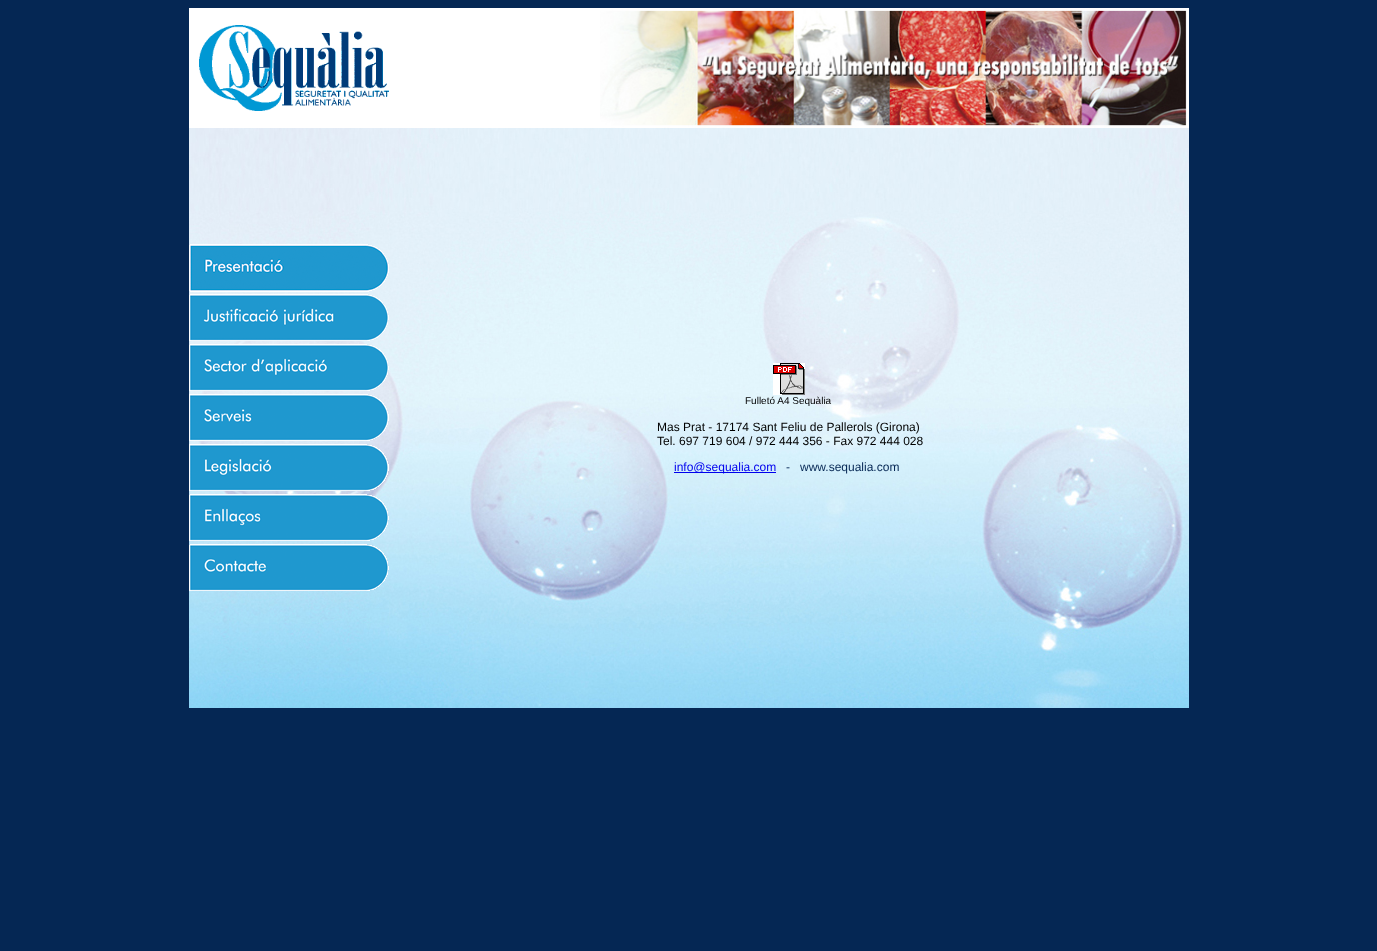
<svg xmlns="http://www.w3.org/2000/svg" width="1377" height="951">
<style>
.a{font:10px Liberation Sans;fill:#000}
.b{font:12px Liberation Sans;fill:#000}
.c{font:12px Liberation Sans;fill:#00e}
.d{font:12px Liberation Sans;fill:#052754}
</style>
<rect width="100%" height="100%" fill="#052754"/>
<path fill="#fff" d="M189 8h1000v120H189z"/>
<image href="1.png" x="199" y="25" width="190" height="86"/>
<image href="2.png" x="600" y="8" width="587" height="120"/>
<image href="3.png" x="189" y="128" width="1000" height="580"/>
<image href="4.png" x="189" y="244" width="200" height="48"/>
<image href="5.png" x="189" y="294" width="200" height="47"/>
<image href="6.png" x="189" y="344" width="200" height="47"/>
<image href="7.png" x="189" y="394" width="200" height="47"/>
<image href="8.png" x="773" y="363" width="32" height="32"/>
<path fill="#00e" d="M674 472h102v1H674z"/>
<image href="9.png" x="189" y="444" width="200" height="47"/>
<image href="10.png" x="189" y="494" width="200" height="47"/>
<image href="11.png" x="189" y="544" width="200" height="47"/>
<text class="a" x="745" y="404">Fulletó A4 Sequàlia</text>
<text class="b" x="657" y="431">Mas Prat - 17174 Sant Feliu de Pallerols (Girona)</text>
<text class="b" x="657" y="445">Tel. 697 719 604 / 972 444 356 - Fax 972 444 028</text>
<text class="c" x="674" y="471">info@sequalia.com</text>
<text class="d" xml:space="preserve" x="786" y="471">-   www.sequalia.com</text>
</svg>
